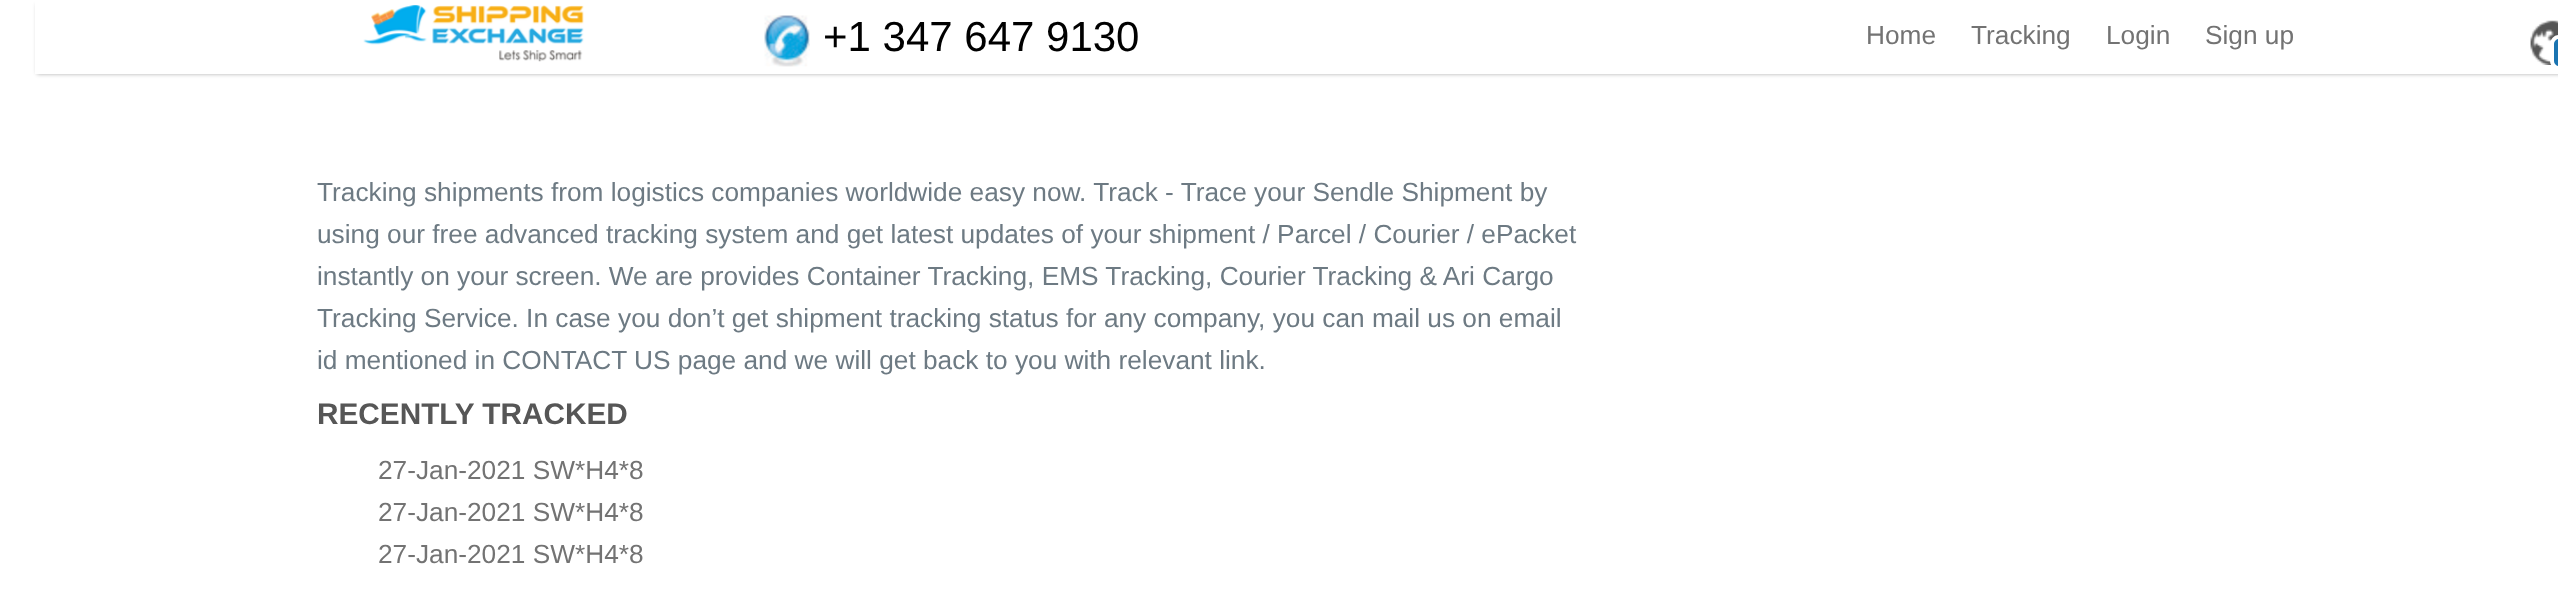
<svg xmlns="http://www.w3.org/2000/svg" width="2558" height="590">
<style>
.a{font:42px Liberation Sans;fill:#000}
.b{font:26.25px Liberation Sans;fill:#737373}
.c{font:26.25px Liberation Sans;fill:#6d7a83}
.d{font:bold 29.75px Liberation Sans;fill:#565656}
</style>
<rect width="100%" height="100%" fill="#fff"/>
<path fill="#00000052" filter="blur(2px)" d="M37 4h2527v70H37z"/>
<path fill="#fff" d="M35 0h2523v74H35z"/>
<image href="1.png" x="363" y="5" width="221" height="57"/>
<image href="2.png" x="764" y="15" width="46" height="52"/>
<image href="3.png" x="2530" y="20" width="28" height="45"/>
<rect fill="#1a74b1" stroke="#fff" stroke-width="4" x="2552" y="37" width="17" height="31" rx="7"/>
<text class="a" x="823" y="51">+1 347 647 9130</text>
<text class="b" x="1866" y="44">Home</text>
<text class="b" x="1971" y="44">Tracking</text>
<text class="b" x="2106" y="44">Login</text>
<text class="b" x="2205" y="44">Sign up</text>
<text class="c" x="317" y="201">Tracking shipments from logistics companies worldwide easy now. Track - Trace your Sendle Shipment by</text>
<text class="c" x="317" y="243">using our free advanced tracking system and get latest updates of your shipment / Parcel / Courier / ePacket</text>
<text class="c" x="317" y="285">instantly on your screen. We are provides Container Tracking, EMS Tracking, Courier Tracking &amp; Ari Cargo</text>
<text class="c" x="317" y="327">Tracking Service. In case you don’t get shipment tracking status for any company, you can mail us on email</text>
<text class="c" x="317" y="369">id mentioned in CONTACT US page and we will get back to you with relevant link.</text>
<text class="d" x="317" y="424">RECENTLY TRACKED</text>
<text class="b" x="378" y="479">27-Jan-2021 SW*H4*8</text>
<text class="b" x="378" y="521">27-Jan-2021 SW*H4*8</text>
<text class="b" x="378" y="563">27-Jan-2021 SW*H4*8</text>
</svg>
